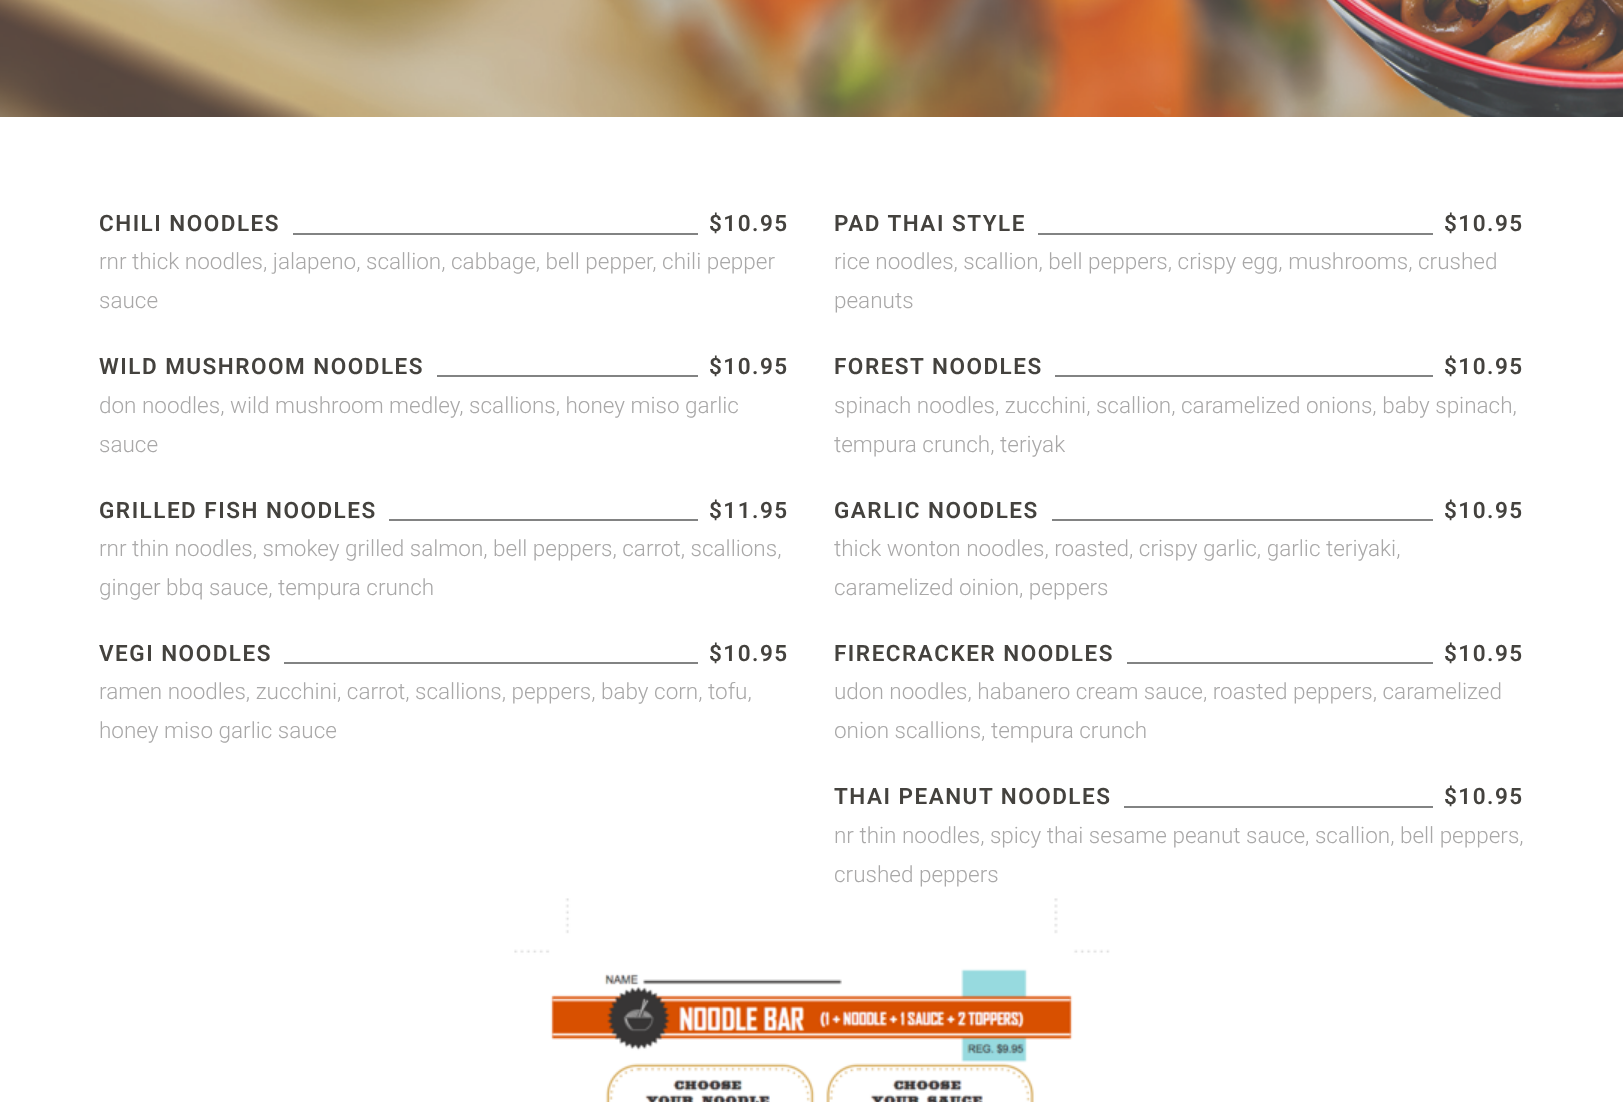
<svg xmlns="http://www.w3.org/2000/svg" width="1623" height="1102">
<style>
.a{font:600 22.5px Roboto;letter-spacing:1.5px;fill:#44423e}
.b{font:300 22.5px Roboto;fill:#a9a8a8}
</style>
<rect width="100%" height="100%" fill="#fff"/>
<image href="1.png" x="0" y="0" width="1623" height="117"/>
<path fill="#828383" d="M293 233h405v2H293z"/>
<path fill="#828383" d="M437 375h261v2H437z"/>
<path fill="#828383" d="M389 519h309v2H389z"/>
<path fill="#828383" d="M284 662h414v2H284z"/>
<path fill="#828383" d="M1038 233h395v2H1038z"/>
<path fill="#828383" d="M1055 375h378v2H1055z"/>
<path fill="#828383" d="M1052 519h381v2H1052z"/>
<path fill="#828383" d="M1127 662h306v2H1127z"/>
<path fill="#828383" d="M1124 806h309v2H1124z"/>
<image href="2.png" x="514" y="898" width="596" height="204"/>
<text class="a" x="99" y="231">CHILI NOODLES</text>
<text class="a" x="709" y="231">$10.95</text>
<text class="b" x="99" y="269">rnr thick noodles, jalapeno, scallion, cabbage, bell pepper, chili pepper</text>
<text class="b" x="99" y="308">sauce</text>
<text class="a" x="99" y="374">WILD MUSHROOM NOODLES</text>
<text class="a" x="709" y="374">$10.95</text>
<text class="b" x="99" y="413">don noodles, wild mushroom medley, scallions, honey miso garlic</text>
<text class="b" x="99" y="452">sauce</text>
<text class="a" x="99" y="518">GRILLED FISH NOODLES</text>
<text class="a" x="709" y="518">$11.95</text>
<text class="b" x="99" y="556">rnr thin noodles, smokey grilled salmon, bell peppers, carrot, scallions,</text>
<text class="b" x="99" y="595">ginger bbq sauce, tempura crunch</text>
<text class="a" x="99" y="661">VEGI NOODLES</text>
<text class="a" x="709" y="661">$10.95</text>
<text class="b" x="99" y="699">ramen noodles, zucchini, carrot, scallions, peppers, baby corn, tofu,</text>
<text class="b" x="99" y="738">honey miso garlic sauce</text>
<text class="a" x="834" y="231">PAD THAI STYLE</text>
<text class="a" x="1444" y="231">$10.95</text>
<text class="b" x="834" y="269">rice noodles, scallion, bell peppers, crispy egg, mushrooms, crushed</text>
<text class="b" x="834" y="308">peanuts</text>
<text class="a" x="834" y="374">FOREST NOODLES</text>
<text class="a" x="1444" y="374">$10.95</text>
<text class="b" x="834" y="413">spinach noodles, zucchini, scallion, caramelized onions, baby spinach,</text>
<text class="b" x="834" y="452">tempura crunch, teriyak</text>
<text class="a" x="834" y="518">GARLIC NOODLES</text>
<text class="a" x="1444" y="518">$10.95</text>
<text class="b" x="834" y="556">thick wonton noodles, roasted, crispy garlic, garlic teriyaki,</text>
<text class="b" x="834" y="595">caramelized oinion, peppers</text>
<text class="a" x="834" y="661">FIRECRACKER NOODLES</text>
<text class="a" x="1444" y="661">$10.95</text>
<text class="b" x="834" y="699">udon noodles, habanero cream sauce, roasted peppers, caramelized</text>
<text class="b" x="834" y="738">onion scallions, tempura crunch</text>
<text class="a" x="834" y="804">THAI PEANUT NOODLES</text>
<text class="a" x="1444" y="804">$10.95</text>
<text class="b" x="834" y="843">nr thin noodles, spicy thai sesame peanut sauce, scallion, bell peppers,</text>
<text class="b" x="834" y="882">crushed peppers</text>
</svg>
